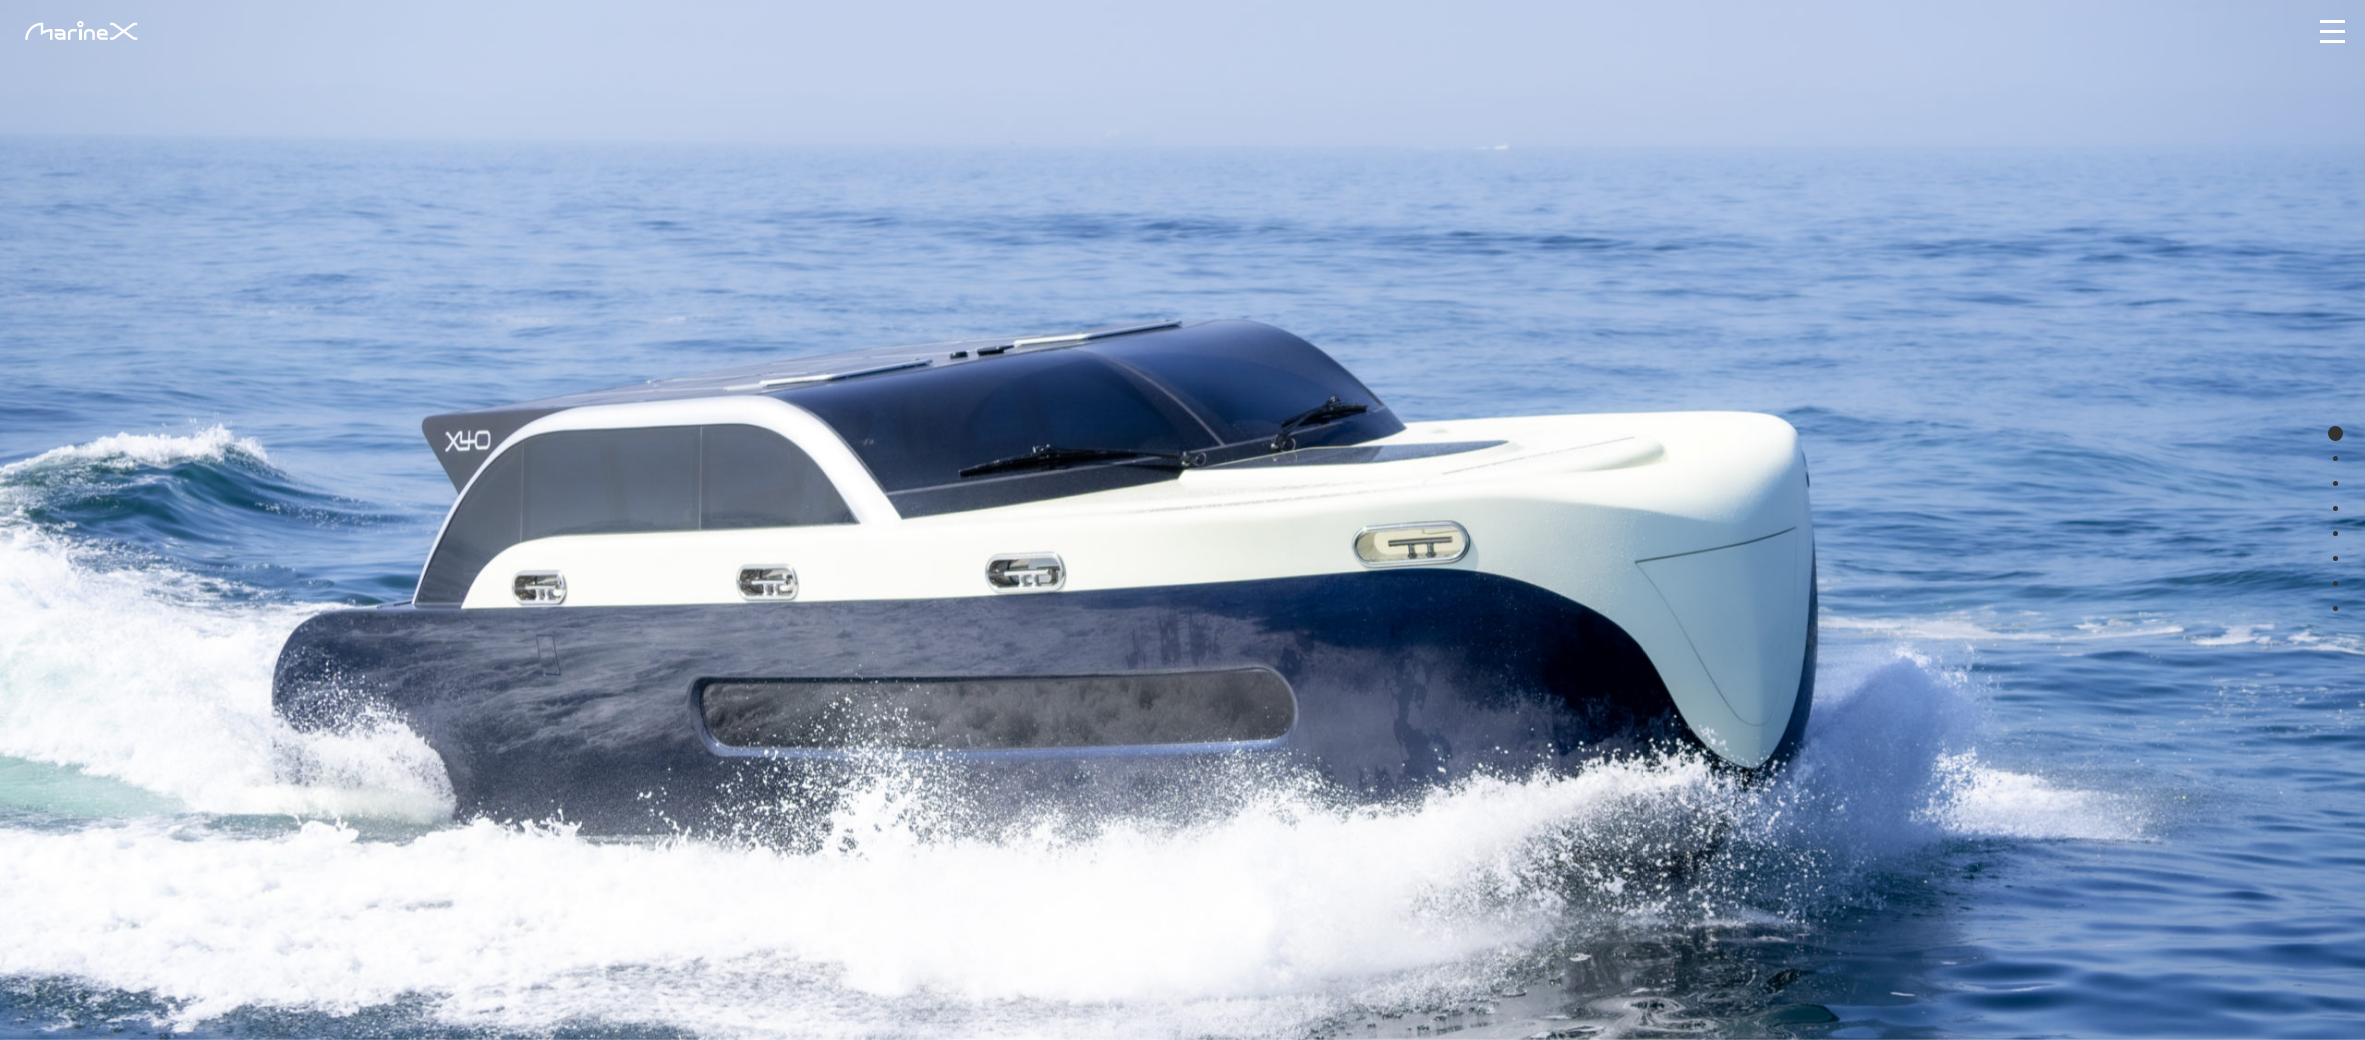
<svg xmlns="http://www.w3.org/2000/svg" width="2365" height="1040">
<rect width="100%" height="100%" fill="#fff"/>
<image href="1.png" x="0" y="0" width="2365" height="1040"/>
<image href="2.png" x="25" y="21" width="113" height="19"/>
<path fill="#fff" d="M2320 20h25v3H2320z"/>
<path fill="#fff" d="M2320 30h25v3H2320z"/>
<path fill="#fff" d="M2320 40h25v3H2320z"/>
<circle fill="#333" cx="2335.5" cy="433.5" r="7.5"/>
<circle fill="#333" cx="2335.5" cy="458.5" r="2.5"/>
<circle fill="#333" cx="2335.5" cy="483.5" r="2.5"/>
<circle fill="#333" cx="2335.5" cy="508.5" r="2.5"/>
<circle fill="#333" cx="2335.5" cy="533.5" r="2.5"/>
<circle fill="#333" cx="2335.5" cy="558.5" r="2.5"/>
<circle fill="#333" cx="2335.5" cy="583.5" r="2.5"/>
<circle fill="#333" cx="2335.5" cy="608.5" r="2.5"/>
</svg>
